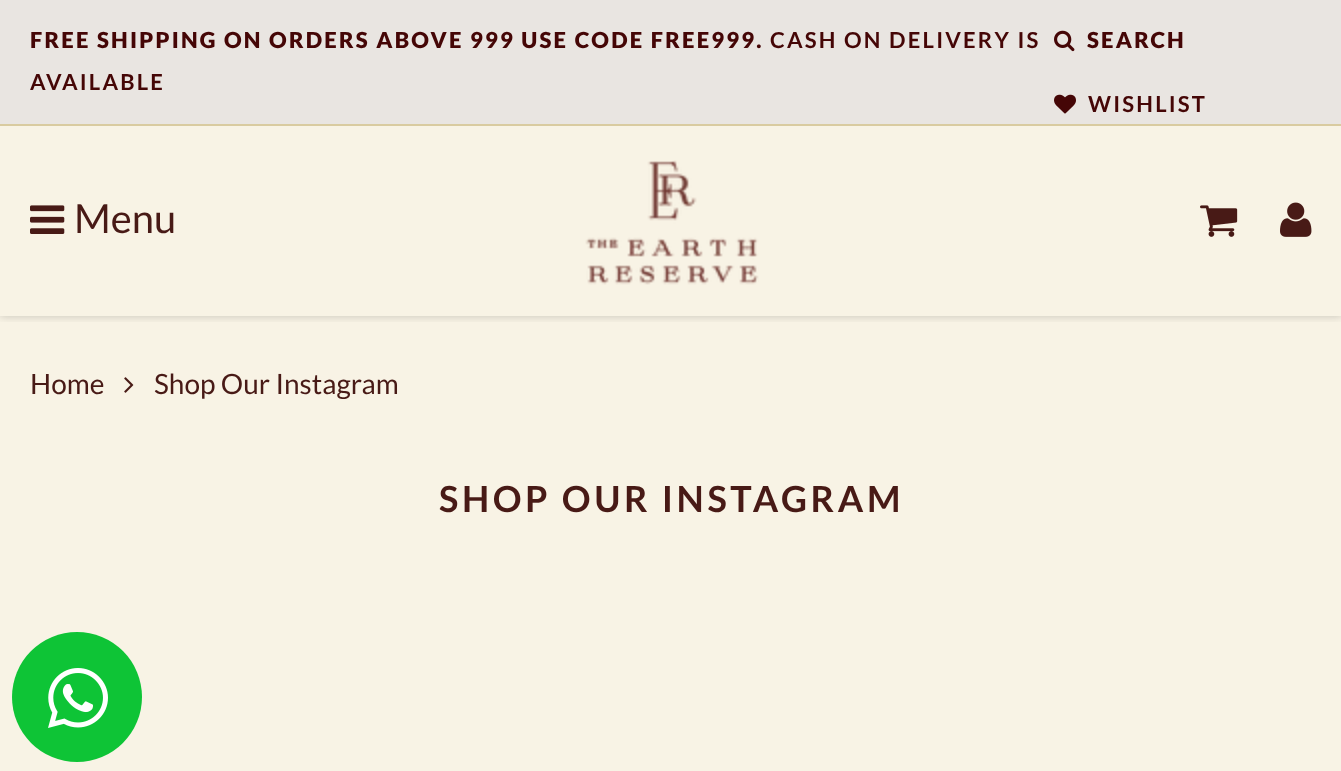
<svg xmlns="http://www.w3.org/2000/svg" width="1341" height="771">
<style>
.a{font:900 22px Lato;letter-spacing:2.2px;fill:#450606}
.b{font:bold 22px Lato;letter-spacing:2.2px;fill:#450606}
.c{font:40px Lato;fill:#481a16}
.d{font:28px Lato;fill:#481a16}
.e{font:bold 36px Lato;letter-spacing:3.6px;fill:#481a16}
</style>
<defs>
<clipPath id="clip1"><path d="M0 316h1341v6H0z"/></clipPath>
</defs>
<rect width="100%" height="100%" fill="#f8f3e5"/>
<g clip-path="url(#clip1)">
<path fill="#00000033" filter="blur(5px)" d="M0 0h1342v316H0z"/>
</g>
<path fill="#e9e5e1" d="M0 0h1341v124H0z"/>
<path fill="#d9cba0" d="M0 124h1341v2H0z"/>
<image href="1.png" x="1054" y="30" width="21" height="22"/>
<image href="2.png" x="1054" y="94" width="22" height="20"/>
<image href="3.png" x="30" y="205" width="35" height="29"/>
<image href="4.png" x="585" y="160" width="174" height="125"/>
<image href="5.png" x="1200" y="205" width="38" height="32"/>
<image href="6.png" x="1280" y="202" width="32" height="35"/>
<image href="7.png" x="124" y="377" width="10" height="16"/>
<circle fill="#0ec436" cx="77" cy="697" r="65"/>
<image href="8.png" x="48" y="668" width="60" height="60"/>
<text class="a" x="30" y="48">FREE SHIPPING ON ORDERS ABOVE 999 USE CODE FREE999.</text>
<text class="b" x="770" y="48">CASH ON DELIVERY IS</text>
<text class="b" x="30" y="90">AVAILABLE</text>
<text class="a" x="1087" y="48">SEARCH</text>
<text class="b" x="1088" y="112">WISHLIST</text>
<text class="c" x="74" y="233">Menu</text>
<text class="d" x="30" y="394">Home</text>
<text class="d" x="154" y="394">Shop Our Instagram</text>
<text class="e" x="439" y="512">SHOP OUR INSTAGRAM</text>
</svg>
